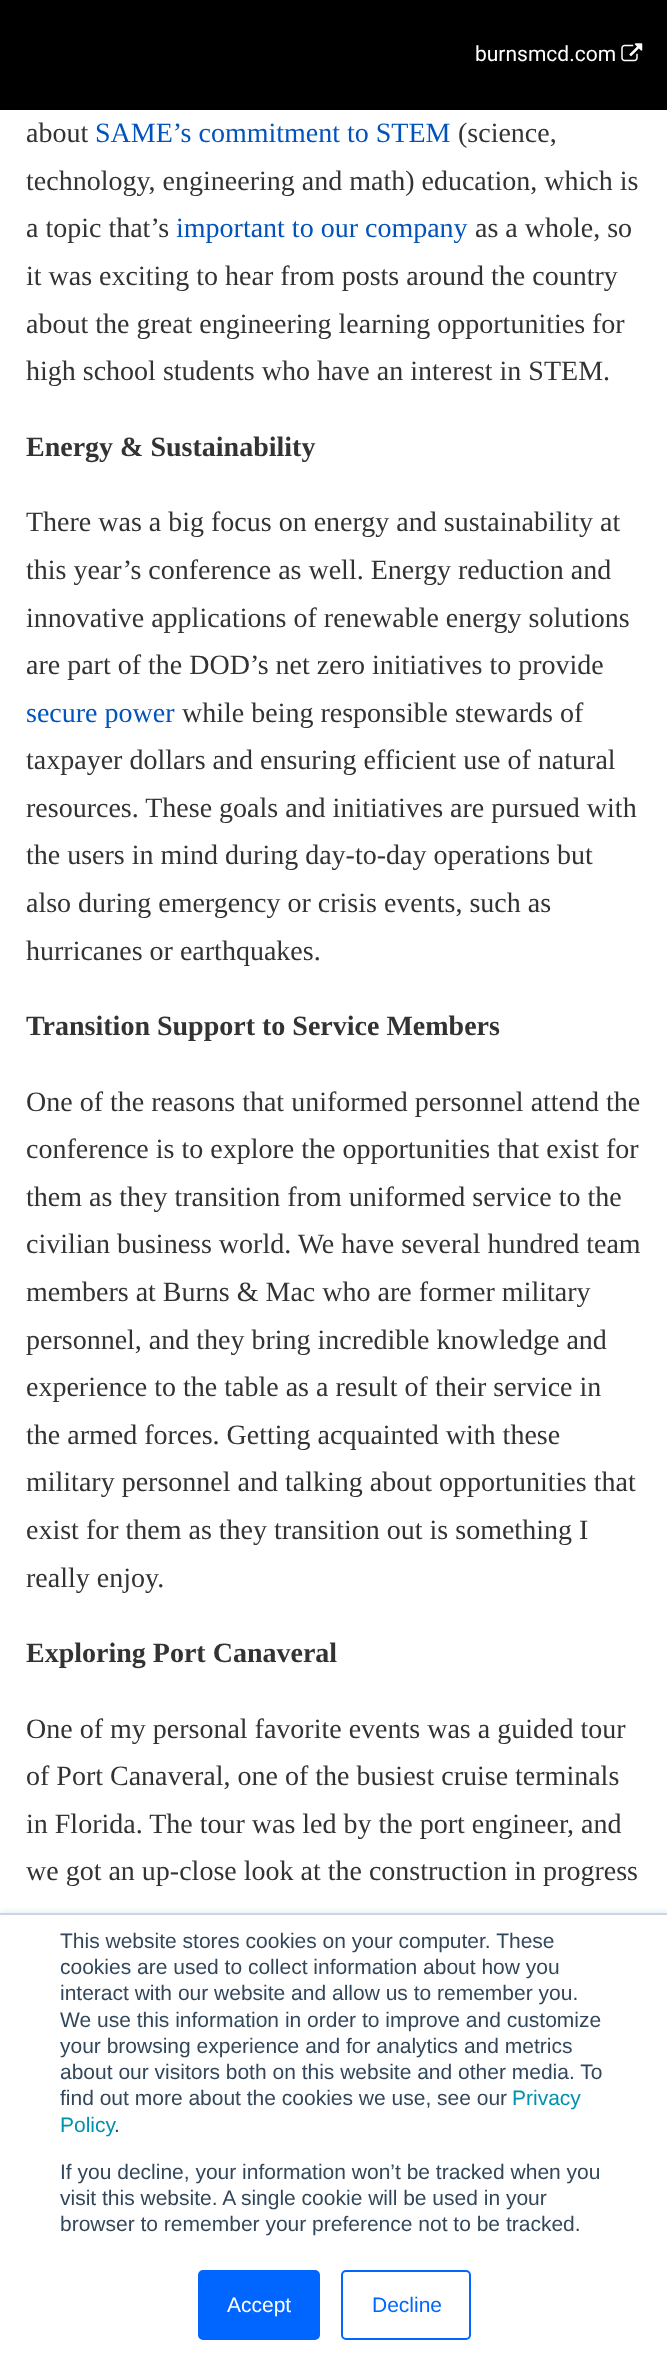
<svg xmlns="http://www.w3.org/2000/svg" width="667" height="2374">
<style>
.a{font:21px Roboto;fill:#fff}
.b{font:28px Liberation Serif;fill:#333}
.c{font:28px Liberation Serif;fill:#0253bc}
.d{font:bold 28px Liberation Serif;fill:#333}
.e{font:21px Liberation Sans;fill:#33475b}
.f{font:21px Liberation Sans;fill:#0091ae}
.g{font:21px Liberation Sans;fill:#fff}
.h{font:21px Liberation Sans;fill:#06f}
</style>
<rect width="100%" height="100%" fill="#fff"/>
<path fill="#000" d="M0 0h667v110H0z"/>
<image href="1.png" x="621" y="43" width="22" height="19"/>
<path fill="#eaf0f6" filter="blur(2.5px)" d="M0 1911h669v462H0z"/>
<path fill="#fff" d="M0 1915h667v459H0z"/>
<path fill="#cbd6e2" d="M0 1913h667v2H0z"/>
<rect fill="#06f" stroke="#06f" stroke-width="2" x="199" y="2271" width="120" height="68" rx="4"/>
<rect fill="none" stroke="#06f" stroke-width="2" x="342" y="2271" width="128" height="68" rx="4"/>
<text class="a" x="475" y="61">burnsmcd.com</text>
<text class="b" x="26" y="142">about</text>
<text class="c" x="95" y="142">SAME’s commitment to STEM</text>
<text class="b" x="458" y="142">(science,</text>
<text class="b" x="26" y="190">technology, engineering and math) education, which is</text>
<text class="b" x="26" y="237">a topic that’s</text>
<text class="c" x="176" y="237">important to our company</text>
<text class="b" x="475" y="237">as a whole, so</text>
<text class="b" x="26" y="285">it was exciting to hear from posts around the country</text>
<text class="b" x="26" y="333">about the great engineering learning opportunities for</text>
<text class="b" x="26" y="380">high school students who have an interest in STEM.</text>
<text class="d" x="26" y="456">Energy &amp; Sustainability</text>
<text class="b" x="26" y="531">There was a big focus on energy and sustainability at</text>
<text class="b" x="26" y="579">this year’s conference as well. Energy reduction and</text>
<text class="b" x="26" y="627">innovative applications of renewable energy solutions</text>
<text class="b" x="26" y="674">are part of the DOD’s net zero initiatives to provide</text>
<text class="c" x="26" y="722">secure power</text>
<text class="b" x="182" y="722">while being responsible stewards of</text>
<text class="b" x="26" y="769">taxpayer dollars and ensuring efficient use of natural</text>
<text class="b" x="26" y="817">resources. These goals and initiatives are pursued with</text>
<text class="b" x="26" y="864">the users in mind during day-to-day operations but</text>
<text class="b" x="26" y="912">also during emergency or crisis events, such as</text>
<text class="b" x="26" y="960">hurricanes or earthquakes.</text>
<text class="d" x="26" y="1035">Transition Support to Service Members</text>
<text class="b" x="26" y="1111">One of the reasons that uniformed personnel attend the</text>
<text class="b" x="26" y="1158">conference is to explore the opportunities that exist for</text>
<text class="b" x="26" y="1206">them as they transition from uniformed service to the</text>
<text class="b" x="26" y="1253">civilian business world. We have several hundred team</text>
<text class="b" x="26" y="1301">members at Burns &amp; Mac who are former military</text>
<text class="b" x="26" y="1349">personnel, and they bring incredible knowledge and</text>
<text class="b" x="26" y="1396">experience to the table as a result of their service in</text>
<text class="b" x="26" y="1444">the armed forces. Getting acquainted with these</text>
<text class="b" x="26" y="1491">military personnel and talking about opportunities that</text>
<text class="b" x="26" y="1539">exist for them as they transition out is something I</text>
<text class="b" x="26" y="1587">really enjoy.</text>
<text class="d" x="26" y="1662">Exploring Port Canaveral</text>
<text class="b" x="26" y="1738">One of my personal favorite events was a guided tour</text>
<text class="b" x="26" y="1785">of Port Canaveral, one of the busiest cruise terminals</text>
<text class="b" x="26" y="1833">in Florida. The tour was led by the port engineer, and</text>
<text class="b" x="26" y="1880">we got an up-close look at the construction in progress</text>
<text class="e" x="60" y="1948">This website stores cookies on your computer. These</text>
<text class="e" x="60" y="1974">cookies are used to collect information about how you</text>
<text class="e" x="60" y="2000">interact with our website and allow us to remember you.</text>
<text class="e" x="60" y="2027">We use this information in order to improve and customize</text>
<text class="e" x="60" y="2053">your browsing experience and for analytics and metrics</text>
<text class="e" x="60" y="2079">about our visitors both on this website and other media. To</text>
<text class="e" x="60" y="2105">find out more about the cookies we use, see our</text>
<text class="f" x="512" y="2105">Privacy</text>
<text class="f" x="60" y="2132">Policy</text>
<text class="e" x="114" y="2132">.</text>
<text class="e" x="60" y="2179">If you decline, your information won’t be tracked when you</text>
<text class="e" x="60" y="2205">visit this website. A single cookie will be used in your</text>
<text class="e" x="60" y="2231">browser to remember your preference not to be tracked.</text>
<text class="g" x="227" y="2312">Accept</text>
<text class="h" x="372" y="2312">Decline</text>
</svg>
